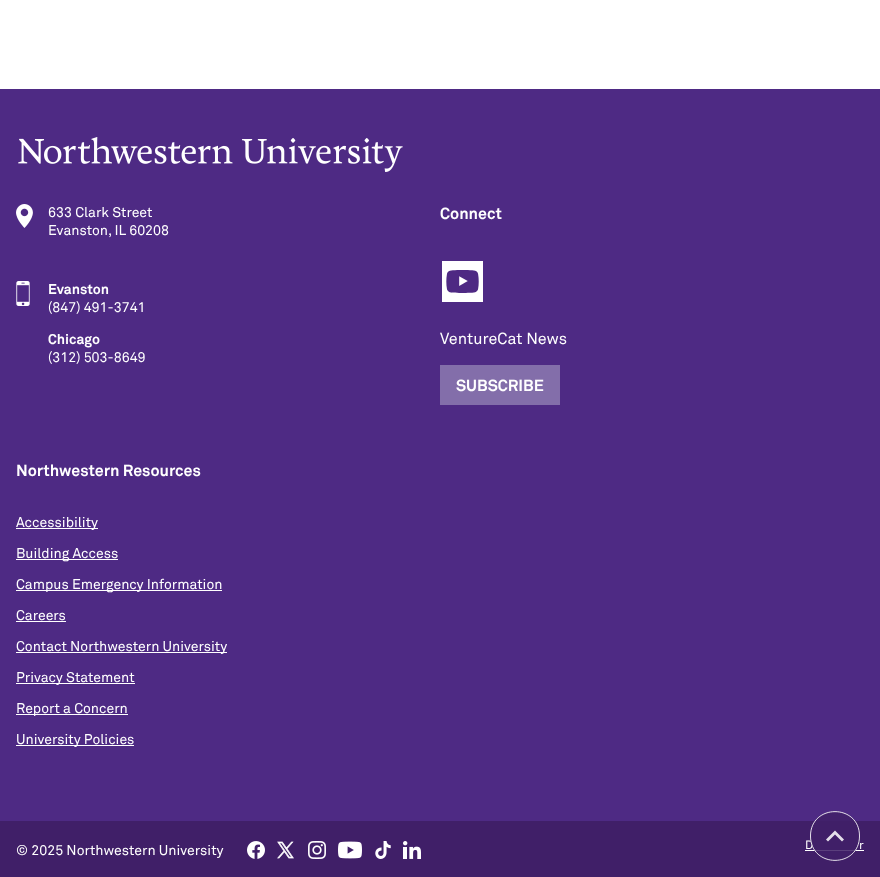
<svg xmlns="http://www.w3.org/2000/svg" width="880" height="877">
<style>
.a{font:14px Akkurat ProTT;fill:#fff}
.b{font:bold 14px Akkurat ProTT;fill:#fff}
.c{font:bold 16px Akkurat ProTT;fill:#fff}
.d{font:16px Akkurat ProTT;fill:#fff}
.e{font:12px Akkurat ProTT;fill:#fff}
</style>
<rect width="100%" height="100%" fill="#fff"/>
<path fill="#4e2a84" d="M0 89h880v732H0z"/>
<image href="1.png" x="18" y="137" width="385" height="35"/>
<image href="2.png" x="16" y="204" width="17" height="24"/>
<image href="3.png" x="16" y="281" width="14" height="25"/>
<path fill="#fff" d="M442 261h41v41H442z"/>
<image href="4.png" x="446" y="270" width="33" height="23"/>
<path fill="#836eaa" d="M440 365h120v40H440z"/>
<path fill="#fff" d="M16 528h82v1H16z"/>
<path fill="#fff" d="M16 559h102v1H16z"/>
<path fill="#fff" d="M16 590h206v1H16z"/>
<path fill="#fff" d="M16 621h50v1H16z"/>
<path fill="#fff" d="M16 652h211v1H16z"/>
<path fill="#fff" d="M16 683h119v1H16z"/>
<path fill="#fff" d="M16 714h112v1H16z"/>
<path fill="#fff" d="M16 745h118v1H16z"/>
<path fill="#401f68" d="M0 821h880v56H0z"/>
<image href="5.png" x="247" y="841" width="18" height="18"/>
<image href="6.png" x="277" y="841" width="17" height="18"/>
<image href="7.png" x="308" y="841" width="18" height="18"/>
<image href="8.png" x="338" y="841" width="24" height="18"/>
<image href="9.png" x="375" y="841" width="16" height="18"/>
<image href="10.png" x="403" y="841" width="18" height="18"/>
<path fill="#fff" d="M805 850h59v1H805z"/>
<text class="a" x="48" y="217">633 Clark Street</text>
<text class="a" x="48" y="235">Evanston, IL 60208</text>
<text class="b" x="48" y="294">Evanston</text>
<text class="a" x="48" y="312">(847) 491-3741</text>
<text class="b" x="48" y="344">Chicago</text>
<text class="a" x="48" y="362">(312) 503-8649</text>
<text class="c" x="440" y="219">Connect</text>
<text class="d" x="440" y="344">VentureCat News</text>
<text class="c" x="456" y="391">SUBSCRIBE</text>
<text class="c" x="16" y="476">Northwestern Resources</text>
<text class="a" x="16" y="527">Accessibility</text>
<text class="a" x="16" y="558">Building Access</text>
<text class="a" x="16" y="589">Campus Emergency Information</text>
<text class="a" x="16" y="620">Careers</text>
<text class="a" x="16" y="651">Contact Northwestern University</text>
<text class="a" x="16" y="682">Privacy Statement</text>
<text class="a" x="16" y="713">Report a Concern</text>
<text class="a" x="16" y="744">University Policies</text>
<text class="a" x="16" y="855">© 2025 Northwestern University</text>
<text class="e" x="805" y="849">D</text>
<text class="e" x="859" y="849">r</text>
<path fill="#401f68db" d="M810 836c0-33 50-33 50 0c0 33-50 33-50 0z"/>
<path fill="#ffffffdb" d="M842 841.5l-7-7l-7 7l-2-2l9-9l9 9z"/>
<path fill="none" stroke="#ffffffdb" d="M810.5 836c0-32.5 49-32.5 49 0c0 32.5-49 32.5-49 0z"/>
</svg>
